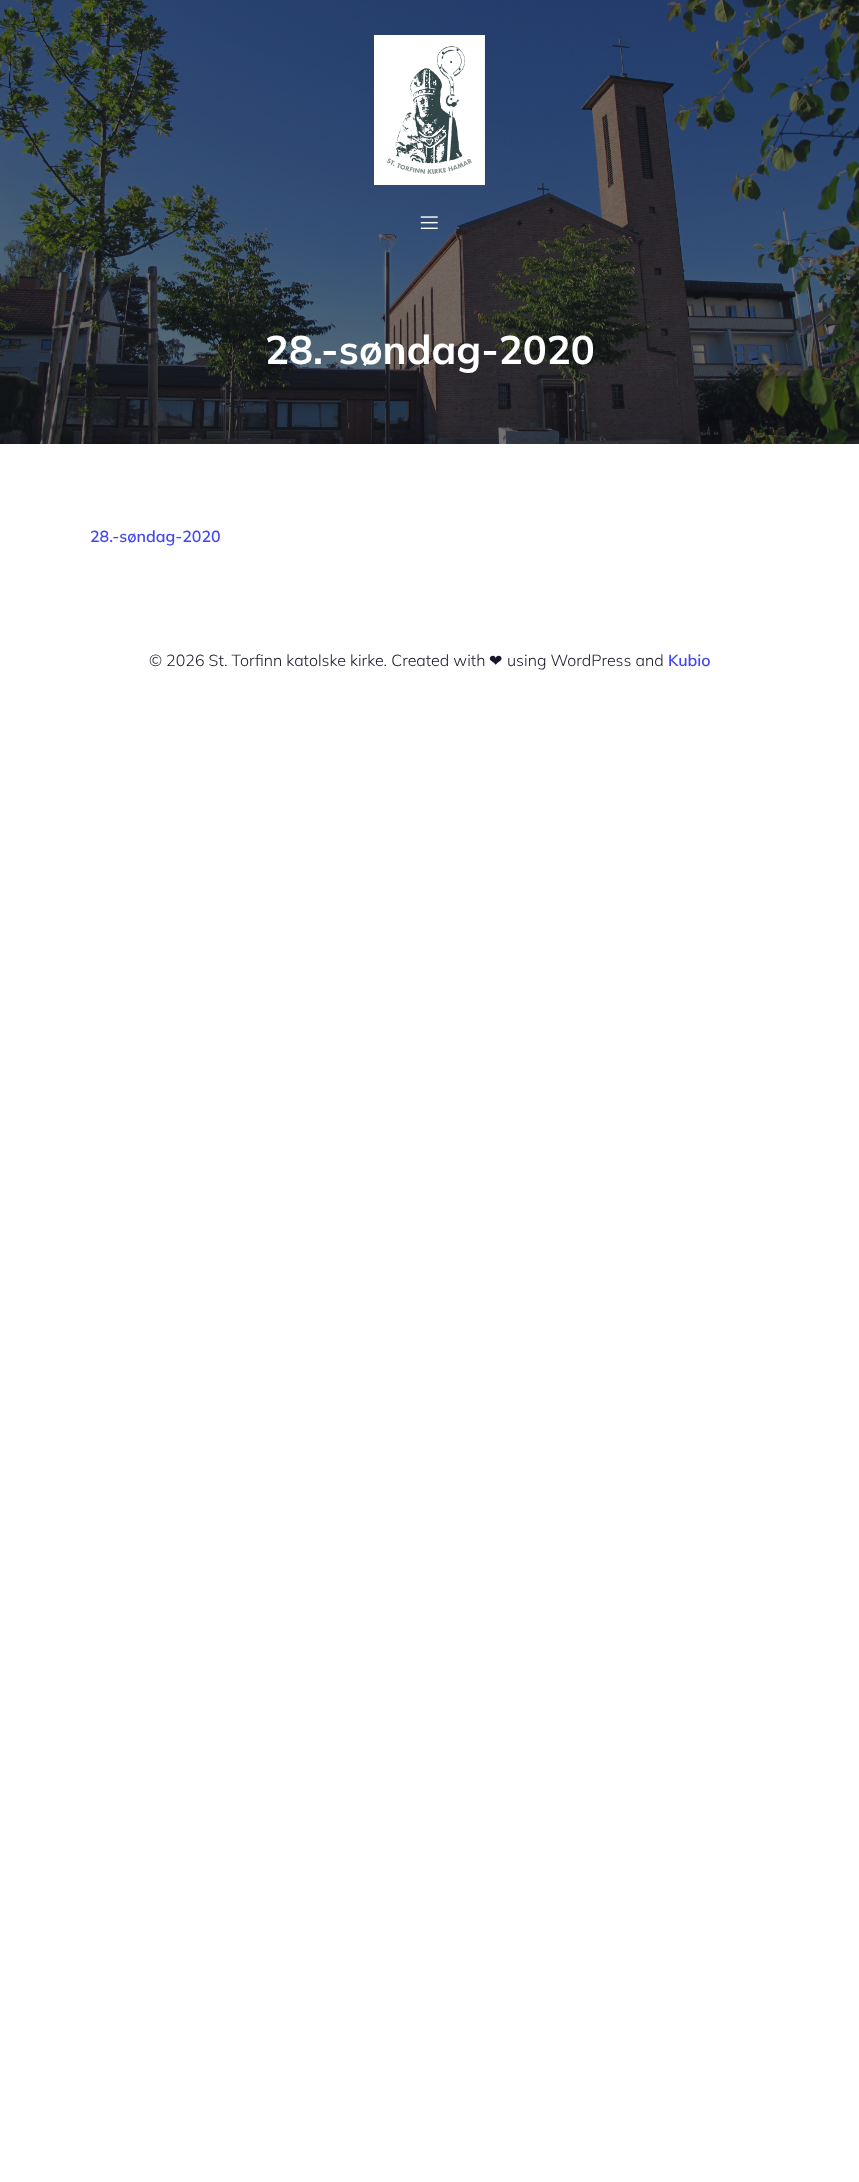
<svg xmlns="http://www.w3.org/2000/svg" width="859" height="2182">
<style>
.a{font:bold 40px Mulish;fill:#fff}
.b{font:600 16px Mulish;fill:#4146f3}
.c{font:300 16px Mulish;fill:#17172b}
.d{font:16px DejaVu Sans;fill:#17172b}
</style>
<rect width="100%" height="100%" fill="#fff"/>
<image href="3.png" x="0" y="0" width="859" height="444"/>
<image href="1.png" x="374" y="35" width="111" height="150"/>
<image href="2.png" x="420" y="216" width="18" height="13"/>
<text class="a" x="265" y="364">28.-søndag-2020</text>
<text class="b" x="90" y="542">28.-søndag-2020</text>
<text class="c" x="149" y="666">© 2026 St. Torfinn katolske kirke. Created with</text>
<text class="d" x="489" y="666">❤</text>
<text class="c" x="507" y="666">using WordPress and</text>
<text class="b" x="668" y="666">Kubio</text>
</svg>
